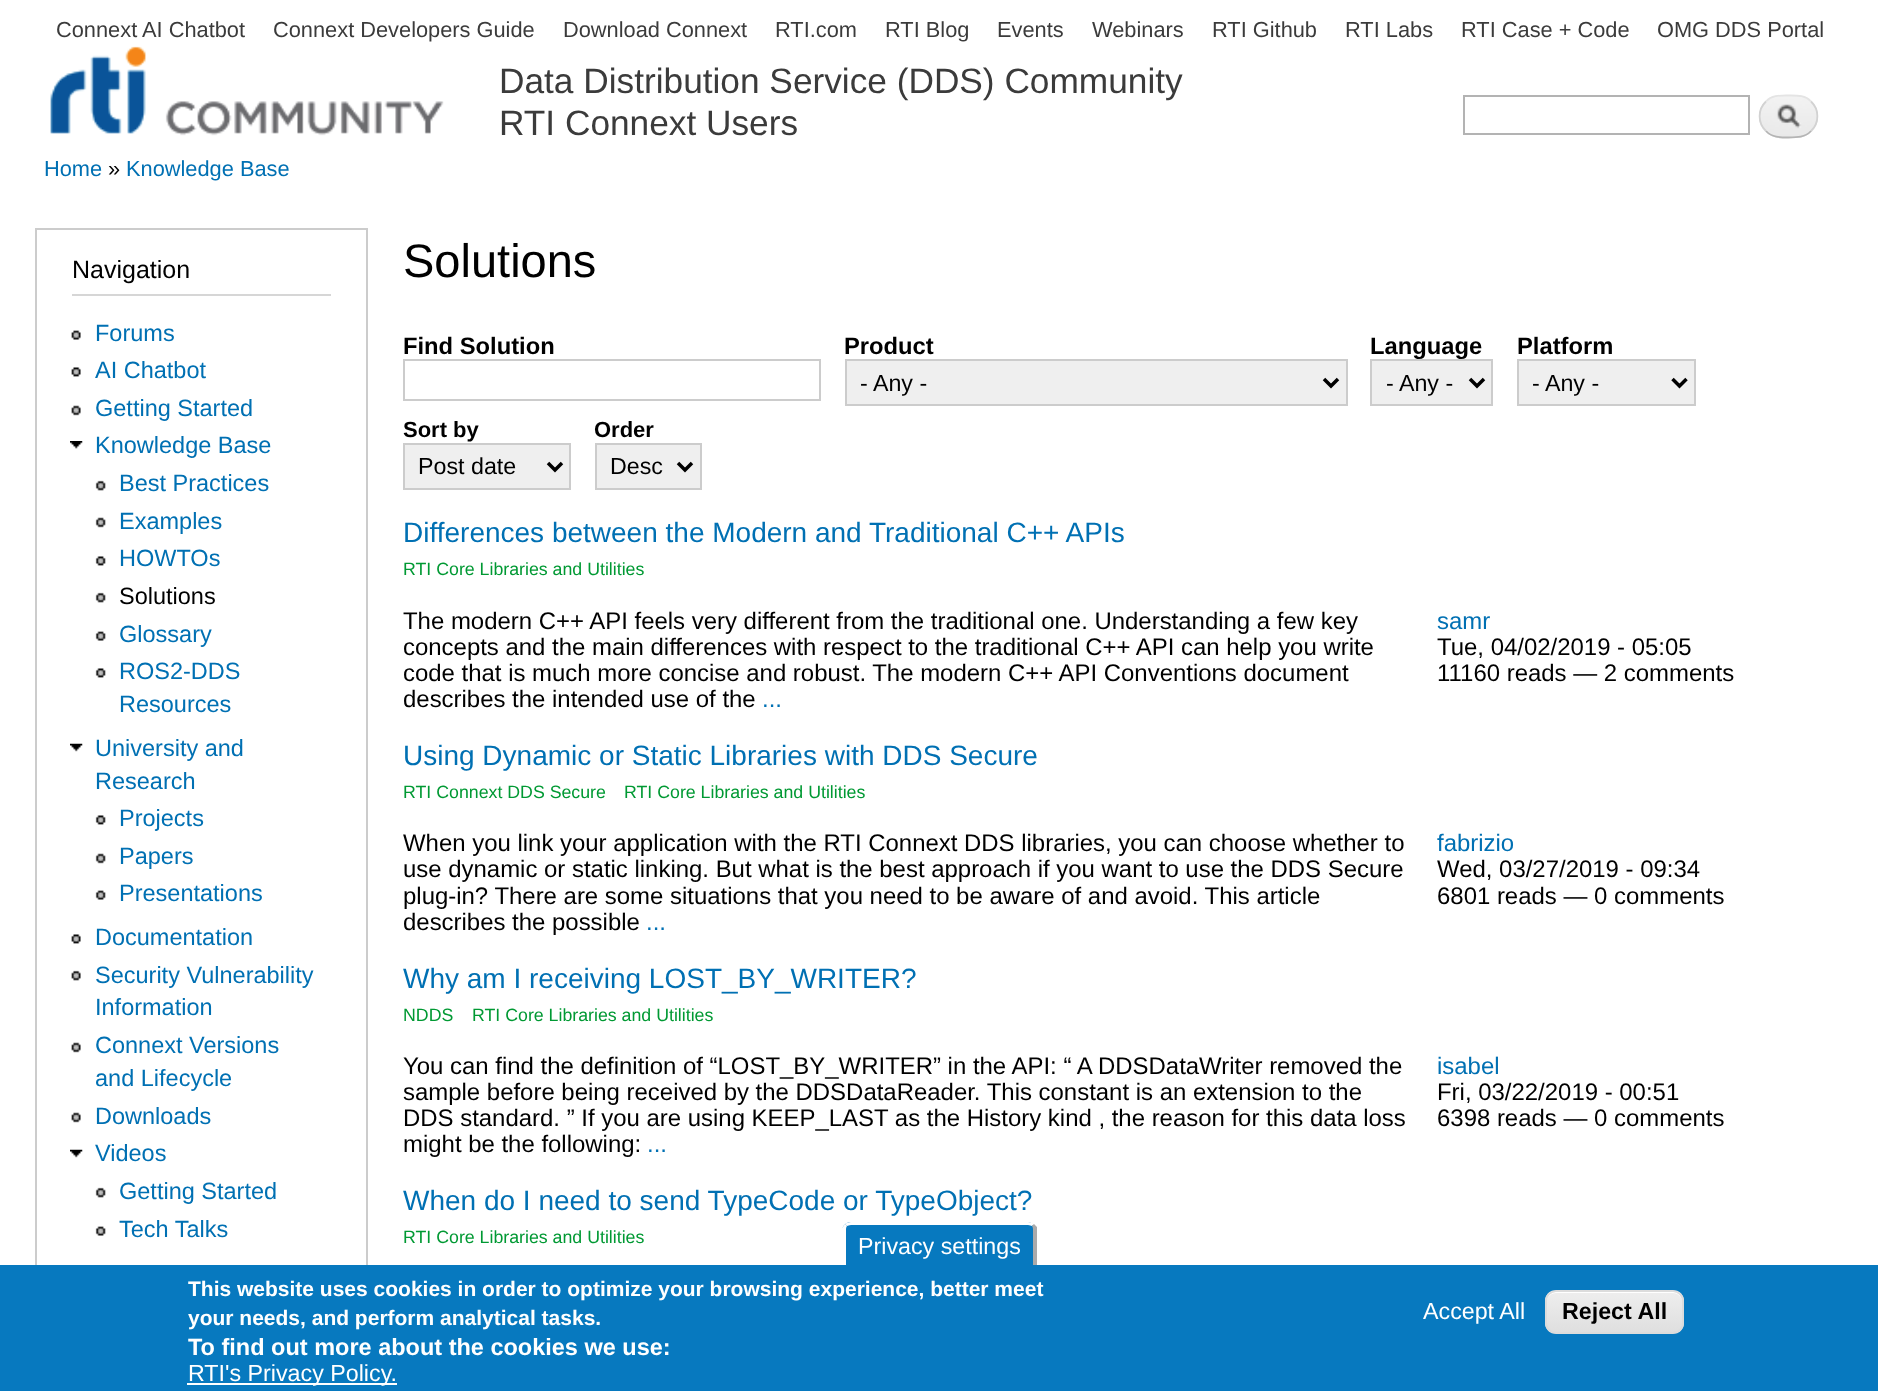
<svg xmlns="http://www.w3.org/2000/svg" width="1878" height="1391">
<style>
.a{font:21.8px Liberation Sans;fill:#3b3b3b}
.b{font:35.25px Liberation Sans;fill:#3b3b3b}
.c{font:21.8px Liberation Sans;fill:#0070b3}
.d{font:21.8px Liberation Sans;fill:#000}
.e{font:25px Liberation Sans;fill:#000}
.f{font:23.5px Liberation Sans;fill:#0070b3}
.g{font:23.5px Liberation Sans;fill:#000}
.h{font:47px Liberation Sans;fill:#000}
.i{font:bold 23.75px Liberation Sans;fill:#000}
.j{font:23.25px Liberation Sans;fill:#000}
.k{font:bold 22px Liberation Sans;fill:#000}
.l{font:28px Liberation Sans;fill:#0070b3}
.m{font:17.75px Liberation Sans;fill:#093}
.n{font:23.95px Liberation Sans;fill:#000}
.o{font:23.95px Liberation Sans;fill:#0070b3}
.p{font:23.25px Liberation Sans;fill:#fff}
.q{font:bold 21px Liberation Sans;fill:#fff}
.r{font:bold 23.5px Liberation Sans;fill:#fff}
.s{font:bold 23.25px Liberation Sans;fill:#000}
</style>
<defs>
<clipPath id="clip1"><rect x="1545" y="1290" width="139" height="44" rx="11"/></clipPath>
<linearGradient id="g1" gradientUnits="userSpaceOnUse" x1="1614" y1="1292" x2="1614" y2="1332"><stop offset="0.05" stop-color="#ededed"/><stop offset="1" stop-color="#dfdfdf"/></linearGradient>
</defs>
<rect width="100%" height="100%" fill="#fff"/>
<image href="1.png" x="50" y="46" width="394" height="90"/>
<path fill="none" stroke="#b3b3b3" stroke-width="2" d="M1464 96h285v38H1464z"/>
<image href="2.png" x="1759" y="96" width="59" height="42"/>
<path fill="none" stroke="#e4e4e4" stroke-width="1.8" d="M1766 101.5c6-6.5 14-6 22.5-6c8.5 0 16.5-.5 22.5 6"/>
<path fill="none" stroke="#d2d2d2" stroke-width="1.8" d="M1811 101.5c8.5 8 8.5 21.5 0 29.5"/>
<path fill="none" stroke="#b4b4b4" stroke-width="1.8" d="M1811 131c-6 6.5-14 6.5-22.5 6.5c-8.5 0-16.5 0-22.5-6.5"/>
<path fill="none" stroke="#d2d2d2" stroke-width="1.8" d="M1766 131c-8.5-8-8.5-21.5 0-29.5"/>
<path fill="none" stroke="#ccc" stroke-width="2" d="M36 229h331v1056H36z"/>
<path fill="#d6d6d6" d="M72 294h259v2H72z"/>
<image href="3.png" x="71" y="330" width="10" height="10"/>
<image href="4.png" x="71" y="367" width="10" height="10"/>
<image href="5.png" x="71" y="405" width="10" height="11"/>
<image href="6.png" x="70" y="441" width="13" height="8"/>
<image href="7.png" x="95" y="480" width="11" height="11"/>
<image href="8.png" x="95" y="517" width="11" height="11"/>
<image href="9.png" x="95" y="556" width="11" height="10"/>
<image href="7.png" x="95" y="592" width="11" height="11"/>
<image href="10.png" x="95" y="631" width="11" height="10"/>
<image href="9.png" x="95" y="668" width="11" height="10"/>
<image href="11.png" x="70" y="743" width="13" height="9"/>
<image href="9.png" x="95" y="815" width="11" height="10"/>
<image href="8.png" x="95" y="853" width="11" height="11"/>
<image href="10.png" x="95" y="890" width="11" height="10"/>
<image href="4.png" x="71" y="934" width="10" height="10"/>
<image href="12.png" x="71" y="970" width="10" height="11"/>
<image href="5.png" x="71" y="1042" width="10" height="11"/>
<image href="5.png" x="71" y="1112" width="10" height="11"/>
<image href="11.png" x="70" y="1149" width="13" height="9"/>
<image href="7.png" x="95" y="1187" width="11" height="11"/>
<image href="10.png" x="95" y="1226" width="11" height="10"/>
<path fill="none" stroke="#ccc" stroke-width="2" d="M404 360h416v40H404z"/>
<path fill="#efefef" stroke="#ccc" stroke-width="2" d="M846 360h501v45H846z"/>
<path fill="none" stroke="#000" stroke-width="3.5" d="M1324 379l7 7l7-7"/>
<path fill="#efefef" stroke="#ccc" stroke-width="2" d="M1371 360h121v45H1371z"/>
<path fill="none" stroke="#000" stroke-width="3.5" d="M1470 379l7 7l7-7"/>
<path fill="#efefef" stroke="#ccc" stroke-width="2" d="M1518 360h177v45H1518z"/>
<path fill="none" stroke="#000" stroke-width="3.5" d="M1672.5 379l7 7l7-7"/>
<path fill="#efefef" stroke="#ccc" stroke-width="2" d="M404 444h166v45H404z"/>
<path fill="none" stroke="#000" stroke-width="3.5" d="M548 463l7 7l7-7"/>
<path fill="#efefef" stroke="#ccc" stroke-width="2" d="M596 444h105v45H596z"/>
<path fill="none" stroke="#000" stroke-width="3.5" d="M678 463l7 7l7-7"/>
<path fill="#0779bf" d="M0 1265h1878v126H0z"/>
<path fill="#0779bf" d="M851 1222h176c5 0 9 4 9 9v34h-194v-34c0-5 4-9 9-9z"/>
<path fill="#fff" d="M851 1222h177c2 0 5 1 6 2l-2 2c-1 0-2-1-4-1h-177c-2 0-3 1-4 1l-2-2c1-1 4-2 6-2z"/>
<path fill="#aaa" d="M1034 1224l3 3v38h-4v-35c0-1 0-3-1-4z"/>
<path fill="#fff" d="M845 1224l2 2c-1 1-1 3-1 4v35h-4v-37z"/>
<path fill="#fff" d="M187 1383h210v2H187z"/>
<g clip-path="url(#clip1)">
<path fill="url(#g1)" d="M1545 1292h139v40H1545z"/>
</g>
<path fill="#fff" d="M1556 1293h117c5 0 9 4 9 9c0-15-20-10-28-10h-78c-9 0-29-5-29 10c0-5 4-9 9-9z"/>
<rect fill="none" stroke="#dcdcdc" stroke-width="2" x="1546" y="1291" width="137" height="42" rx="10"/>
<text class="a" x="56" y="37">Connext AI Chatbot</text>
<text class="a" x="273" y="37">Connext Developers Guide</text>
<text class="a" x="563" y="37">Download Connext</text>
<text class="a" x="775" y="37">RTI.com</text>
<text class="a" x="885" y="37">RTI Blog</text>
<text class="a" x="997" y="37">Events</text>
<text class="a" x="1092" y="37">Webinars</text>
<text class="a" x="1212" y="37">RTI Github</text>
<text class="a" x="1345" y="37">RTI Labs</text>
<text class="a" x="1461" y="37">RTI Case + Code</text>
<text class="a" x="1657" y="37">OMG DDS Portal</text>
<text class="b" x="499" y="93">Data Distribution Service (DDS) Community</text>
<text class="b" x="499" y="135">RTI Connext Users</text>
<text class="c" x="44" y="176">Home</text>
<text class="d" x="108" y="176">»</text>
<text class="c" x="126" y="176">Knowledge Base</text>
<text class="e" x="72" y="278">Navigation</text>
<text class="f" x="95" y="341">Forums</text>
<text class="f" x="95" y="378">AI Chatbot</text>
<text class="f" x="95" y="416">Getting Started</text>
<text class="f" x="95" y="453">Knowledge Base</text>
<text class="f" x="119" y="491">Best Practices</text>
<text class="f" x="119" y="529">Examples</text>
<text class="f" x="119" y="566">HOWTOs</text>
<text class="g" x="119" y="604">Solutions</text>
<text class="f" x="119" y="642">Glossary</text>
<text class="f" x="119" y="679">ROS2-DDS</text>
<text class="f" x="119" y="712">Resources</text>
<text class="f" x="95" y="756">University and</text>
<text class="f" x="95" y="789">Research</text>
<text class="f" x="119" y="826">Projects</text>
<text class="f" x="119" y="864">Papers</text>
<text class="f" x="119" y="901">Presentations</text>
<text class="f" x="95" y="945">Documentation</text>
<text class="f" x="95" y="983">Security Vulnerability</text>
<text class="f" x="95" y="1015">Information</text>
<text class="f" x="95" y="1053">Connext Versions</text>
<text class="f" x="95" y="1086">and Lifecycle</text>
<text class="f" x="95" y="1124">Downloads</text>
<text class="f" x="95" y="1161">Videos</text>
<text class="f" x="119" y="1199">Getting Started</text>
<text class="f" x="119" y="1237">Tech Talks</text>
<text class="h" x="403" y="277">Solutions</text>
<text class="i" x="403" y="354">Find Solution</text>
<text class="i" x="844" y="354">Product</text>
<text class="j" x="860" y="391">- Any -</text>
<text class="i" x="1370" y="354">Language</text>
<text class="j" x="1386" y="391">- Any -</text>
<text class="i" x="1517" y="354">Platform</text>
<text class="j" x="1532" y="391">- Any -</text>
<text class="k" x="403" y="437">Sort by</text>
<text class="j" x="418" y="474">Post date</text>
<text class="k" x="594" y="437">Order</text>
<text class="j" x="610" y="474">Desc</text>
<text class="l" x="403" y="542">Differences between the Modern and Traditional C++ APIs</text>
<text class="m" x="403" y="575">RTI Core Libraries and Utilities</text>
<text class="n" x="403" y="629">The modern C++ API feels very different from the traditional one. Understanding a few key</text>
<text class="n" x="403" y="655">concepts and the main differences with respect to the traditional C++ API can help you write</text>
<text class="n" x="403" y="681">code that is much more concise and robust. The modern C++ API Conventions document</text>
<text class="n" x="403" y="707">describes the intended use of the</text>
<text class="o" x="762" y="707">...</text>
<text class="o" x="1437" y="629">samr</text>
<text class="n" x="1437" y="655">Tue, 04/02/2019 - 05:05</text>
<text class="n" x="1437" y="681">11160 reads — 2 comments</text>
<text class="l" x="403" y="765">Using Dynamic or Static Libraries with DDS Secure</text>
<text class="m" x="403" y="798">RTI Connext DDS Secure</text>
<text class="m" x="624" y="798">RTI Core Libraries and Utilities</text>
<text class="n" x="403" y="851">When you link your application with the RTI Connext DDS libraries, you can choose whether to</text>
<text class="n" x="403" y="877">use dynamic or static linking. But what is the best approach if you want to use the DDS Secure</text>
<text class="n" x="403" y="904">plug-in? There are some situations that you need to be aware of and avoid. This article</text>
<text class="n" x="403" y="930">describes the possible</text>
<text class="o" x="646" y="930">...</text>
<text class="o" x="1437" y="851">fabrizio</text>
<text class="n" x="1437" y="877">Wed, 03/27/2019 - 09:34</text>
<text class="n" x="1437" y="904">6801 reads — 0 comments</text>
<text class="l" x="403" y="988">Why am I receiving LOST_BY_WRITER?</text>
<text class="m" x="403" y="1021">NDDS</text>
<text class="m" x="472" y="1021">RTI Core Libraries and Utilities</text>
<text class="n" x="403" y="1074">You can find the definition of “LOST_BY_WRITER” in the API: “ A DDSDataWriter removed the</text>
<text class="n" x="403" y="1100">sample before being received by the DDSDataReader. This constant is an extension to the</text>
<text class="n" x="403" y="1126">DDS standard. ” If you are using KEEP_LAST as the History kind , the reason for this data loss</text>
<text class="n" x="403" y="1152">might be the following:</text>
<text class="o" x="647" y="1152">...</text>
<text class="o" x="1437" y="1074">isabel</text>
<text class="n" x="1437" y="1100">Fri, 03/22/2019 - 00:51</text>
<text class="n" x="1437" y="1126">6398 reads — 0 comments</text>
<text class="l" x="403" y="1210">When do I need to send TypeCode or TypeObject?</text>
<text class="m" x="403" y="1243">RTI Core Libraries and Utilities</text>
<text class="p" x="858" y="1254">Privacy settings</text>
<text class="q" x="188" y="1296">This website uses cookies in order to optimize your browsing experience, better meet</text>
<text class="q" x="188" y="1325">your needs, and perform analytical tasks.</text>
<text class="r" x="188" y="1355">To find out more about the cookies we use:</text>
<text class="p" x="188" y="1381">RTI's Privacy Policy.</text>
<text class="p" x="1423" y="1319">Accept All</text>
<text class="s" x="1562" y="1319">Reject All</text>
</svg>
